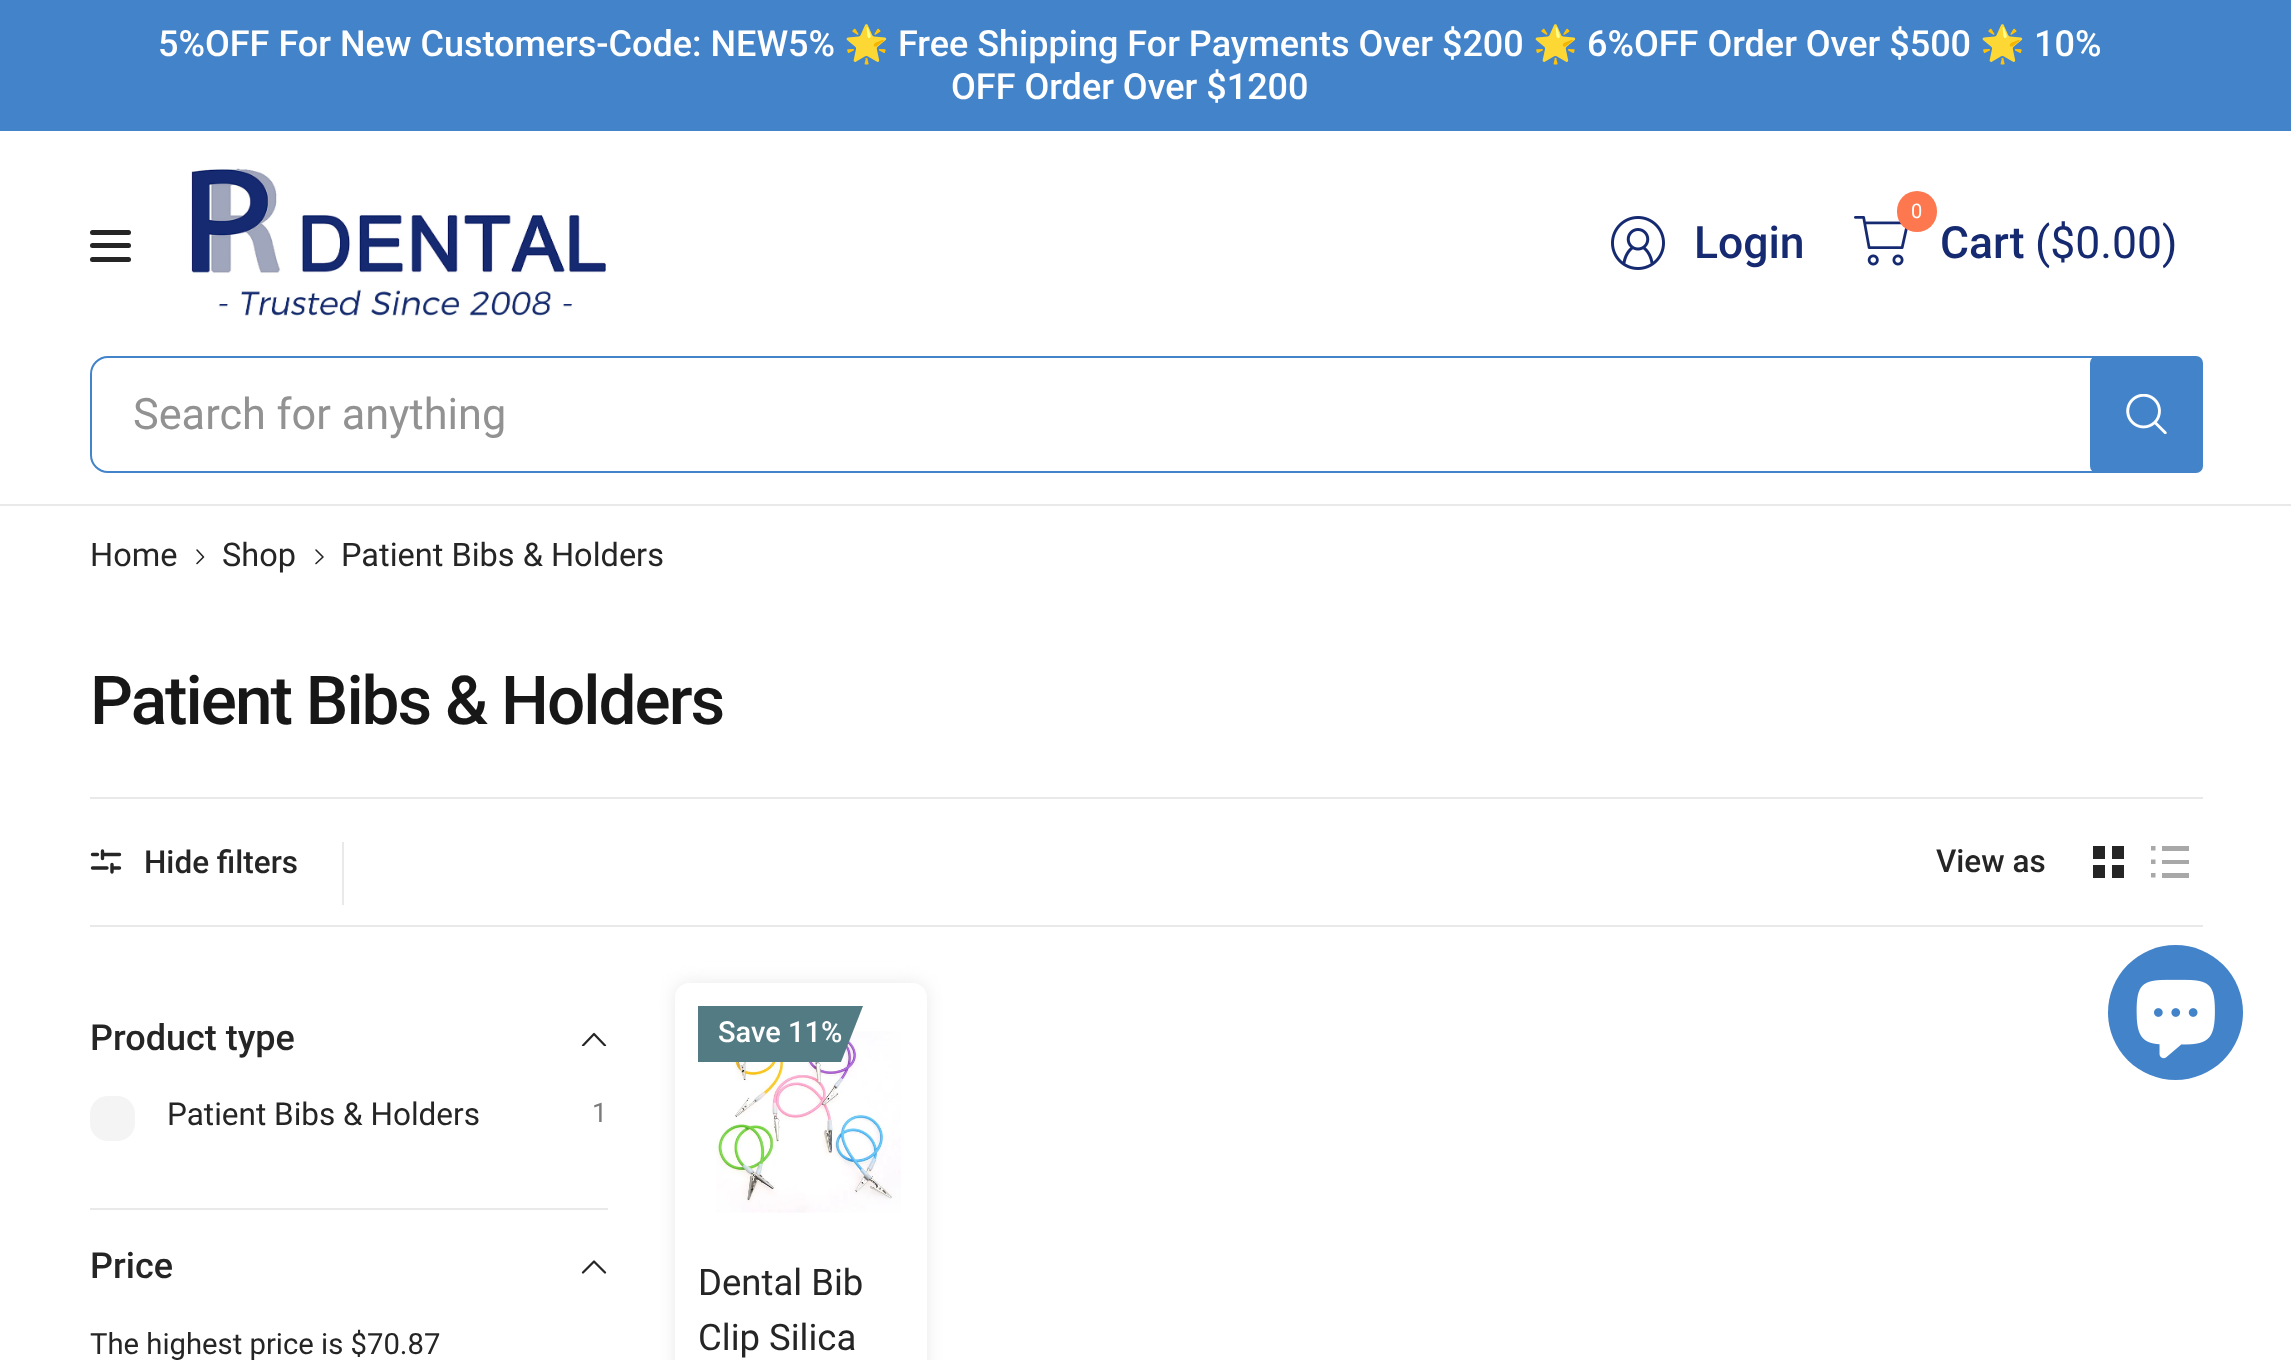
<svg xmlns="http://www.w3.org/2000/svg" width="2291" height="1360">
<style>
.a{font:500 36px Roboto;fill:#fff}
.b{font:36px Noto Color Emoji;fill:#fff}
.c{font:500 44.5px Roboto;fill:#162a71}
.d{font:20px Roboto;fill:#fff}
.e{font:44.5px Roboto;fill:#162a71}
.f{font:43.25px Roboto;fill:#929292}
.g{font:32.5px Roboto;fill:#252525}
.h{font:500 67.5px Roboto;letter-spacing:-2px;fill:#171717}
.i{font:500 31.5px Roboto;fill:#252525}
.j{font:500 36px Roboto;fill:#252525}
.k{font:31.5px Roboto;fill:#252525}
.l{font:27px Roboto;fill:#7c7c7c}
.m{font:29.25px Roboto;fill:#252525}
.n{font:500 29px Roboto;fill:#fff}
.o{font:36.5px Roboto;fill:#252525}
</style>
<defs>
<clipPath id="clip1"><path d="M581 1031h27v15H581z"/></clipPath>
<clipPath id="clip2"><path d="M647 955h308v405h-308zm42 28h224c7.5 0 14 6.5 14 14v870c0 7.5-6.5 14-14 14h-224c-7.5 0-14-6.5-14-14v-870c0-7.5 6.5-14 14-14z" clip-rule="evenodd"/></clipPath>
</defs>
<rect width="100%" height="100%" fill="#fff"/>
<path fill="#4383c9" d="M0 0h2291v131H0z"/>
<rect fill="#252525" x="90" y="230" width="41" height="5" rx="2.5"/>
<rect fill="#252525" x="90" y="243" width="41" height="5" rx="2.5"/>
<rect fill="#252525" x="90" y="257" width="41" height="5" rx="2.5"/>
<image href="1.png" x="191" y="168" width="415" height="148"/>
<image href="2.png" x="1611" y="216" width="54" height="54"/>
<image href="3.png" x="1854" y="216" width="54" height="50"/>
<rect fill="#fd784f" x="1897" y="191" width="40" height="41" rx="20"/>
<rect fill="none" stroke="#4383c9" stroke-width="2" x="91" y="357" width="2111" height="115" rx="17"/>
<rect fill="#4383c9" x="2090" y="356" width="113" height="117" rx="7"/>
<image href="4.png" x="2126" y="394" width="41" height="40"/>
<path fill="#e9e9e9" d="M0 504h2291v2H0z"/>
<path fill="none" stroke="#252525" stroke-width="1.6" stroke-linecap="round" stroke-linejoin="round" d="M197 550l6.5 7l-6.5 6.5"/>
<path fill="none" stroke="#252525" stroke-width="1.6" stroke-linecap="round" stroke-linejoin="round" d="M316 550l7 7l-7 6.5"/>
<path fill="#e9e9e9" d="M90 797h2113v2H90z"/>
<path fill="#e9e9e9" d="M90 925h2113v2H90z"/>
<path fill="none" stroke="#252525" stroke-width="3.4" stroke-linecap="round" stroke-linejoin="round" d="M107 868h-14.5m27 0h-7.5m-14.5-13.5h-5m27 0h-17m0-3.5v7.5m9.5 13.5v-7.5"/>
<path fill="#e9e9e9" d="M342 842h2v63H342z"/>
<path fill="#252525" d="M2093 846h12v13H2093z"/>
<path fill="#252525" d="M2112 846h12v13H2112z"/>
<path fill="#252525" d="M2093 865h12v13H2093z"/>
<path fill="#252525" d="M2112 865h12v13H2112z"/>
<image href="5.png" x="2151" y="846" width="38" height="32"/>
<path fill="#e9e9e9" d="M90 1208h518v2H90z"/>
<g clip-path="url(#clip1)">
<path fill="none" stroke="#252525" stroke-width="2.2" stroke-linecap="round" stroke-linejoin="round" d="M605 1045.5l-11-11.5l-11 11.5"/>
</g>
<rect fill="#f4f4f4" x="90" y="1096" width="45" height="45" rx="18"/>
<path fill="none" stroke="#252525" stroke-width="2.2" stroke-linecap="round" stroke-linejoin="round" d="M605 1272.5l-11-11l-11 11"/>
<g clip-path="url(#clip2)">
<rect fill="#e9e9e9" filter="blur(9px)" x="675" y="983" width="252" height="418" rx="14"/>
</g>
<image href="6.png" x="716" y="1031" width="185" height="182"/>
<path fill="#537b83" d="M698 1006h165l-22 56h-143z"/>
<circle fill="#4383c9" cx="2175.5" cy="1012.5" r="67.5"/>
<image href="7.png" x="2136" y="979" width="79" height="80"/>
<text class="a" x="158" y="56">5%OFF For New Customers-Code: NEW5%</text>
<text class="b" x="844" y="56">🌟</text>
<text class="a" x="898" y="56">Free Shipping For Payments Over $200</text>
<text class="b" x="1533" y="56">🌟</text>
<text class="a" x="1587" y="56">6%OFF Order Over $500</text>
<text class="b" x="1980" y="56">🌟</text>
<text class="a" x="2034" y="56">10%</text>
<text class="a" x="951" y="99">OFF Order Over $1200</text>
<text class="c" x="1694" y="258">Login</text>
<text class="d" x="1911" y="218">0</text>
<text class="c" x="1940" y="258">Cart</text>
<text class="e" x="2035" y="258">($0.00)</text>
<text class="f" x="133" y="429">Search for anything</text>
<text class="g" x="90" y="566">Home</text>
<text class="g" x="222" y="566">Shop</text>
<text class="g" x="341" y="566">Patient Bibs &amp; Holders</text>
<text class="h" x="90" y="724">Patient Bibs &amp; Holders</text>
<text class="i" x="144" y="873">Hide filters</text>
<text class="i" x="1936" y="872">View as</text>
<text class="j" x="90" y="1050">Product type</text>
<text class="k" x="167" y="1125">Patient Bibs &amp; Holders</text>
<text class="l" x="592" y="1122">1</text>
<text class="j" x="90" y="1278">Price</text>
<text class="m" x="90" y="1354">The highest price is $70.87</text>
<text class="n" x="718" y="1042">Save 11%</text>
<text class="o" x="698" y="1295">Dental Bib</text>
<text class="o" x="698" y="1350">Clip Silica</text>
</svg>
